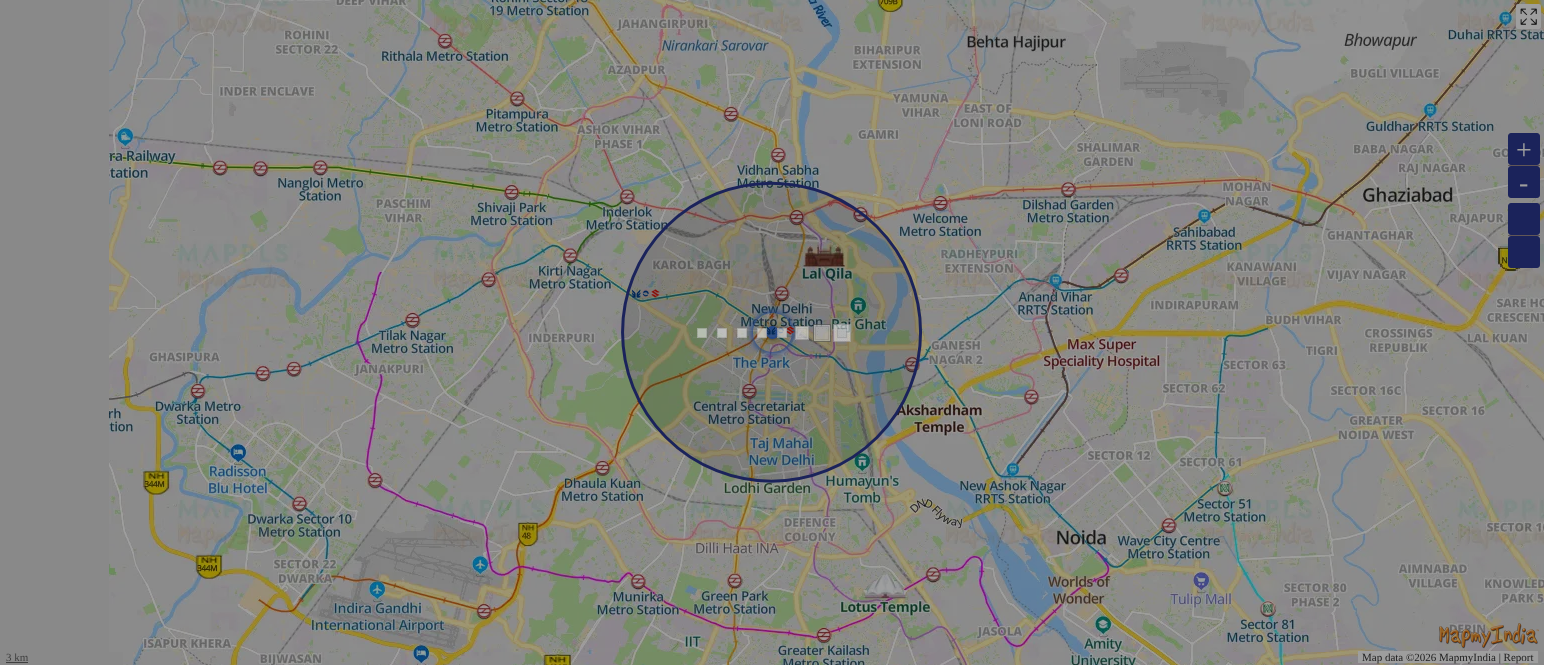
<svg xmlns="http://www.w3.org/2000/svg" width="1544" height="665">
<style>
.a{font:28px Liberation Serif;fill:#9e9e9e}
.b{font:11px Liberation Serif;fill:#3f3f3f}
.c{font:11px Liberation Serif;fill:#202020}
</style>
<defs>
<clipPath id="clip1"><path d="M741 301h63v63h-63zm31.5 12c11 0 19.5 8.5 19.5 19.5c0 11-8.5 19.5-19.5 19.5c-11 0-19.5-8.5-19.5-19.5c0-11 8.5-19.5 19.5-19.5z" clip-rule="evenodd"/></clipPath>
</defs>
<rect width="100%" height="100%" fill="#898989"/>
<image href="1.png" x="109" y="0" width="256" height="140"/>
<image href="2.png" x="365" y="0" width="256" height="140"/>
<image href="3.png" x="621" y="0" width="256" height="140"/>
<image href="4.png" x="877" y="0" width="256" height="140"/>
<image href="5.png" x="1133" y="0" width="256" height="140"/>
<image href="6.png" x="1389" y="0" width="155" height="140"/>
<image href="7.png" x="109" y="140" width="256" height="256"/>
<image href="8.png" x="365" y="140" width="256" height="256"/>
<image href="9.png" x="621" y="140" width="256" height="256"/>
<image href="10.png" x="877" y="140" width="256" height="256"/>
<image href="11.png" x="1133" y="140" width="256" height="256"/>
<image href="12.png" x="1389" y="140" width="155" height="256"/>
<image href="13.png" x="109" y="396" width="256" height="256"/>
<image href="14.png" x="365" y="396" width="256" height="256"/>
<image href="15.png" x="621" y="396" width="256" height="256"/>
<image href="16.png" x="877" y="396" width="256" height="256"/>
<image href="17.png" x="1133" y="396" width="256" height="256"/>
<image href="18.png" x="1389" y="396" width="155" height="256"/>
<image href="19.png" x="123" y="652" width="242" height="13"/>
<image href="20.png" x="365" y="652" width="256" height="13"/>
<image href="21.png" x="621" y="652" width="256" height="13"/>
<image href="22.png" x="877" y="652" width="256" height="13"/>
<image href="23.png" x="1133" y="652" width="256" height="13"/>
<image href="24.png" x="1389" y="652" width="150" height="13"/>
<image href="25.png" x="621" y="181" width="302" height="302"/>
<image href="26.png" x="632" y="289" width="28" height="11"/>
<rect fill="#000000bf" filter="blur(4px)" x="767" y="327" width="13" height="13" rx="6.5"/>
<circle fill="#244788" cx="772.5" cy="332.5" r="6.5"/>
<g clip-path="url(#clip1)">
<rect fill="#244788" filter="blur(3px)" x="751" y="311" width="43" height="43" rx="21.5"/>
</g>
<image href="27.png" x="767" y="326" width="28" height="11"/>
<path fill="#625757" d="M1508 165h32v1H1508z"/>
<rect fill="#1b235b" stroke="#1b235b" x="1508.5" y="133.5" width="31" height="31" rx="2.5"/>
<rect fill="#1b235b" stroke="#1b235b" x="1508.5" y="166.5" width="31" height="31" rx="2.5"/>
<path fill="#625757" d="M1508 235h32v1H1508z"/>
<rect fill="#1b235b" stroke="#1b235b" x="1508.5" y="203.5" width="31" height="31" rx="2.5"/>
<rect fill="#1b235b" stroke="#1b235b" x="1508.5" y="236.5" width="31" height="31" rx="2.5"/>
<rect fill="#9e9e9e" x="1516" y="4" width="25" height="25" rx="2"/>
<image href="28.png" x="1520" y="8" width="17" height="17"/>
<path fill="#3f3f3f" d="M6 662h22v1H6z"/>
<image href="29.png" x="1439" y="623" width="100" height="26"/>
<path fill="#9e9e9e" d="M1358 651h180v12H1358z"/>
<image href="30.png" x="697" y="324" width="154" height="18"/>
<text class="a" x="1516" y="159">+</text>
<text class="a" x="1519" y="192">-</text>
<text class="b" x="6" y="661">3 km</text>
<text class="c" x="1362" y="661">Map data ©2026 MapmyIndia | Report</text>
</svg>
